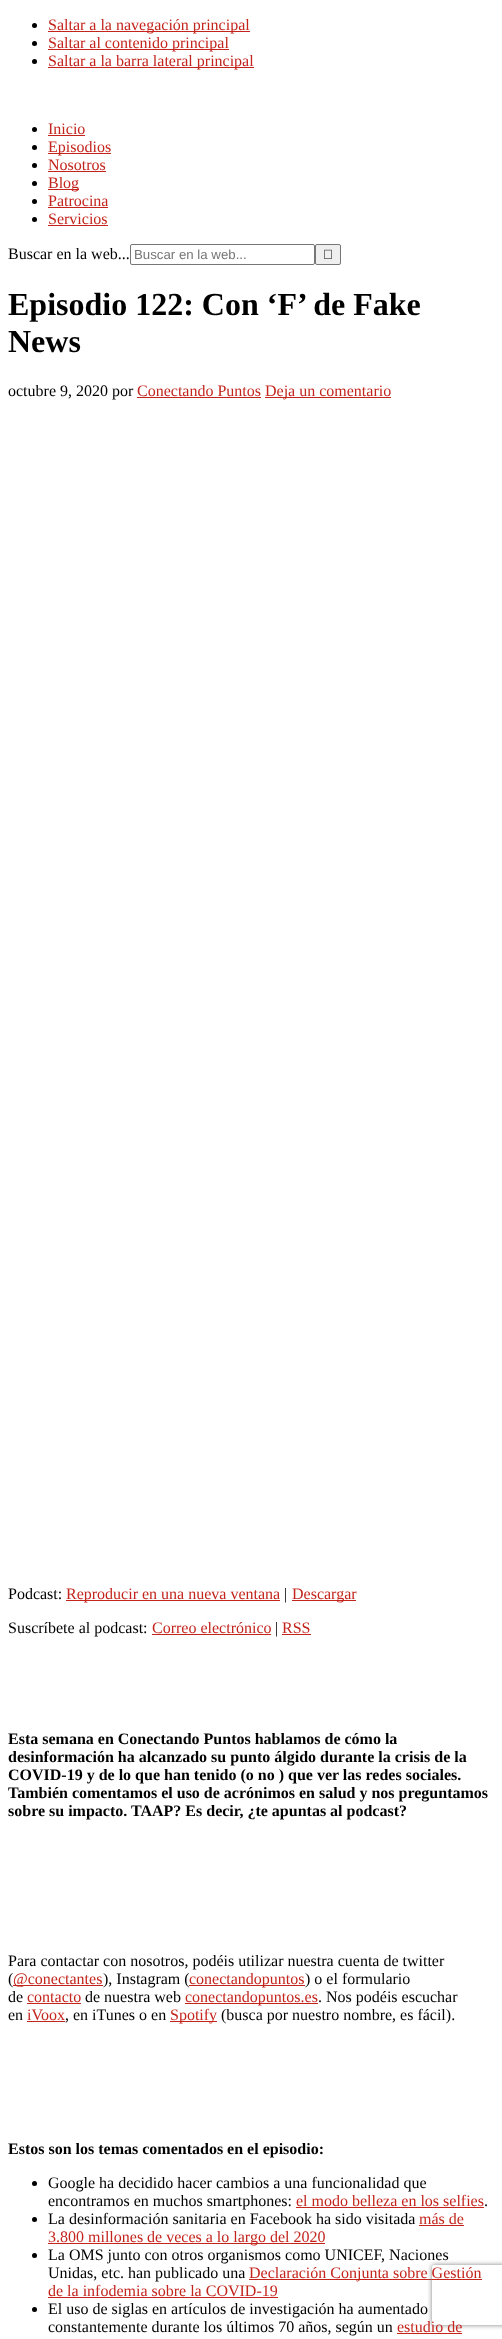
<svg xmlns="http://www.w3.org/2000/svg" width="502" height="2339">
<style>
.a{font:16px Liberation Serif;fill:#c3251d}
.b{font:16px Liberation Serif;fill:#000}
.c{font:13.25px Liberation Sans;fill:#757575}
.d{font:bold 32px Liberation Serif;fill:#000}
.e{font:bold 16px Liberation Serif;fill:#000}
</style>
<defs>
<clipPath id="clip1"><path d="M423 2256h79v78h-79zm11 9h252c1 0 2 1 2 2v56c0 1-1 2-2 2h-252c-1 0-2-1-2-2v-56c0-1 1-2 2-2z" clip-rule="evenodd"/></clipPath>
</defs>
<rect width="100%" height="100%" fill="#fff"/>
<circle fill="#000" cx="34.5" cy="25.5" r="2.5"/>
<path fill="#c3251d" d="M48 31h202v1H48z"/>
<circle fill="#000" cx="34.5" cy="43.5" r="2.5"/>
<path fill="#c3251d" d="M48 49h181v1H48z"/>
<circle fill="#000" cx="34.5" cy="61.5" r="2.5"/>
<path fill="#c3251d" d="M48 67h206v1H48z"/>
<circle fill="#000" cx="34.5" cy="129.5" r="2.5"/>
<path fill="#c3251d" d="M48 135h37v1H48z"/>
<circle fill="#000" cx="34.5" cy="147.5" r="2.5"/>
<path fill="#c3251d" d="M48 153h63v1H48z"/>
<circle fill="#000" cx="34.5" cy="165.5" r="2.5"/>
<path fill="#c3251d" d="M48 171h58v1H48z"/>
<circle fill="#000" cx="34.5" cy="183.5" r="2.5"/>
<path fill="#c3251d" d="M48 189h31v1H48z"/>
<circle fill="#000" cx="34.5" cy="201.5" r="2.5"/>
<path fill="#c3251d" d="M48 207h60v1H48z"/>
<circle fill="#000" cx="34.5" cy="219.5" r="2.5"/>
<path fill="#c3251d" d="M48 225h60v1H48z"/>
<rect fill="none" stroke="#767676" x="130.5" y="244.5" width="184" height="20" rx="1.5"/>
<rect fill="#efefef" stroke="#767676" x="315.5" y="244.5" width="25" height="20" rx="1.5"/>
<image href="1.png" x="324" y="249" width="8" height="10"/>
<path fill="#c3251d" d="M137 397h124v1H137z"/>
<path fill="#c3251d" d="M265 397h126v1H265z"/>
<path fill="#c3251d" d="M66 1600h214v1H66z"/>
<path fill="#c3251d" d="M292 1600h64v1H292z"/>
<path fill="#c3251d" d="M152 1634h119v1H152z"/>
<path fill="#c3251d" d="M282 1634h29v1H282z"/>
<path fill="#c3251d" d="M13 1985h90v1H13z"/>
<path fill="#c3251d" d="M189 1985h116v1H189z"/>
<path fill="#c3251d" d="M27 2003h54v1H27z"/>
<path fill="#c3251d" d="M185 2003h133v1H185z"/>
<path fill="#c3251d" d="M27 2021h38v1H27z"/>
<path fill="#c3251d" d="M170 2021h47v1H170z"/>
<circle fill="#000" cx="34.5" cy="2183.5" r="2.5"/>
<path fill="#c3251d" d="M296 2207h188v1H296z"/>
<circle fill="#000" cx="34.5" cy="2219.5" r="2.5"/>
<path fill="#c3251d" d="M419 2225h45v1H419z"/>
<path fill="#c3251d" d="M48 2243h277v1H48z"/>
<circle fill="#000" cx="34.5" cy="2255.5" r="2.5"/>
<path fill="#c3251d" d="M249 2279h233v1H249z"/>
<path fill="#c3251d" d="M48 2297h230v1H48z"/>
<circle fill="#000" cx="34.5" cy="2309.5" r="2.5"/>
<path fill="#c3251d" d="M397 2333h65v1H397z"/>
<g clip-path="url(#clip1)">
<rect fill="#808080" filter="blur(2.5px)" x="432" y="2265" width="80" height="60" rx="2"/>
</g>
<text class="a" x="48" y="30">Saltar a la navegación principal</text>
<text class="a" x="48" y="48">Saltar al contenido principal</text>
<text class="a" x="48" y="66">Saltar a la barra lateral principal</text>
<text class="a" x="48" y="134">Inicio</text>
<text class="a" x="48" y="152">Episodios</text>
<text class="a" x="48" y="170">Nosotros</text>
<text class="a" x="48" y="188">Blog</text>
<text class="a" x="48" y="206">Patrocina</text>
<text class="a" x="48" y="224">Servicios</text>
<text class="b" x="8" y="259">Buscar en la web...</text>
<text class="c" x="134" y="259">Buscar en la web...</text>
<text class="d" x="8" y="315">Episodio 122: Con ‘F’ de Fake</text>
<text class="d" x="8" y="352">News</text>
<text class="b" x="8" y="396">octubre 9, 2020 por</text>
<text class="a" x="137" y="396">Conectando Puntos</text>
<text class="a" x="265" y="396">Deja un comentario</text>
<text class="b" x="8" y="1599">Podcast:</text>
<text class="a" x="66" y="1599">Reproducir en una nueva ventana</text>
<text class="b" x="284" y="1599">|</text>
<text class="a" x="292" y="1599">Descargar</text>
<text class="b" x="8" y="1633">Suscríbete al podcast:</text>
<text class="a" x="152" y="1633">Correo electrónico</text>
<text class="b" x="275" y="1633">|</text>
<text class="a" x="282" y="1633">RSS</text>
<text class="e" x="8" y="1744">Esta semana en Conectando Puntos hablamos de cómo la</text>
<text class="e" x="8" y="1762">desinformación ha alcanzado su punto álgido durante la crisis de la</text>
<text class="e" x="8" y="1780">COVID-19 y de lo que han tenido (o no ) que ver las redes sociales.</text>
<text class="e" x="8" y="1798">También comentamos el uso de acrónimos en salud y nos preguntamos</text>
<text class="e" x="8" y="1816">sobre su impacto. TAAP? Es decir, ¿te apuntas al podcast?</text>
<text class="b" x="8" y="1966">Para contactar con nosotros, podéis utilizar nuestra cuenta de twitter</text>
<text class="b" x="8" y="1984">(</text>
<text class="a" x="13" y="1984">@conectantes</text>
<text class="b" x="103" y="1984">), Instagram (</text>
<text class="a" x="189" y="1984">conectandopuntos</text>
<text class="b" x="305" y="1984">) o el formulario</text>
<text class="b" x="8" y="2002">de</text>
<text class="a" x="27" y="2002">contacto</text>
<text class="b" x="85" y="2002">de nuestra web</text>
<text class="a" x="185" y="2002">conectandopuntos.es</text>
<text class="b" x="318" y="2002">. Nos podéis escuchar</text>
<text class="b" x="8" y="2020">en</text>
<text class="a" x="27" y="2020">iVoox</text>
<text class="b" x="65" y="2020">, en iTunes o en</text>
<text class="a" x="170" y="2020">Spotify</text>
<text class="b" x="221" y="2020">(busca por nuestro nombre, es fácil).</text>
<text class="e" x="8" y="2154">Estos son los temas comentados en el episodio:</text>
<text class="b" x="48" y="2188">Google ha decidido hacer cambios a una funcionalidad que</text>
<text class="b" x="48" y="2206">encontramos en muchos smartphones:</text>
<text class="a" x="296" y="2206">el modo belleza en los selfies</text>
<text class="b" x="484" y="2206">.</text>
<text class="b" x="48" y="2224">La desinformación sanitaria en Facebook ha sido visitada</text>
<text class="a" x="419" y="2224">más de</text>
<text class="a" x="48" y="2242">3.800 millones de veces a lo largo del 2020</text>
<text class="b" x="48" y="2260">La OMS junto con otros organismos como UNICEF, Naciones</text>
<text class="b" x="48" y="2278">Unidas, etc. han publicado una</text>
<text class="a" x="249" y="2278">Declaración Conjunta sobre Gestión</text>
<text class="a" x="48" y="2296">de la infodemia sobre la COVID-19</text>
<text class="b" x="48" y="2314">El uso de siglas en artículos de investigación ha aumentado</text>
<text class="b" x="48" y="2332">constantemente durante los últimos 70 años, según un</text>
<text class="a" x="397" y="2332">estudio de</text>
</svg>
